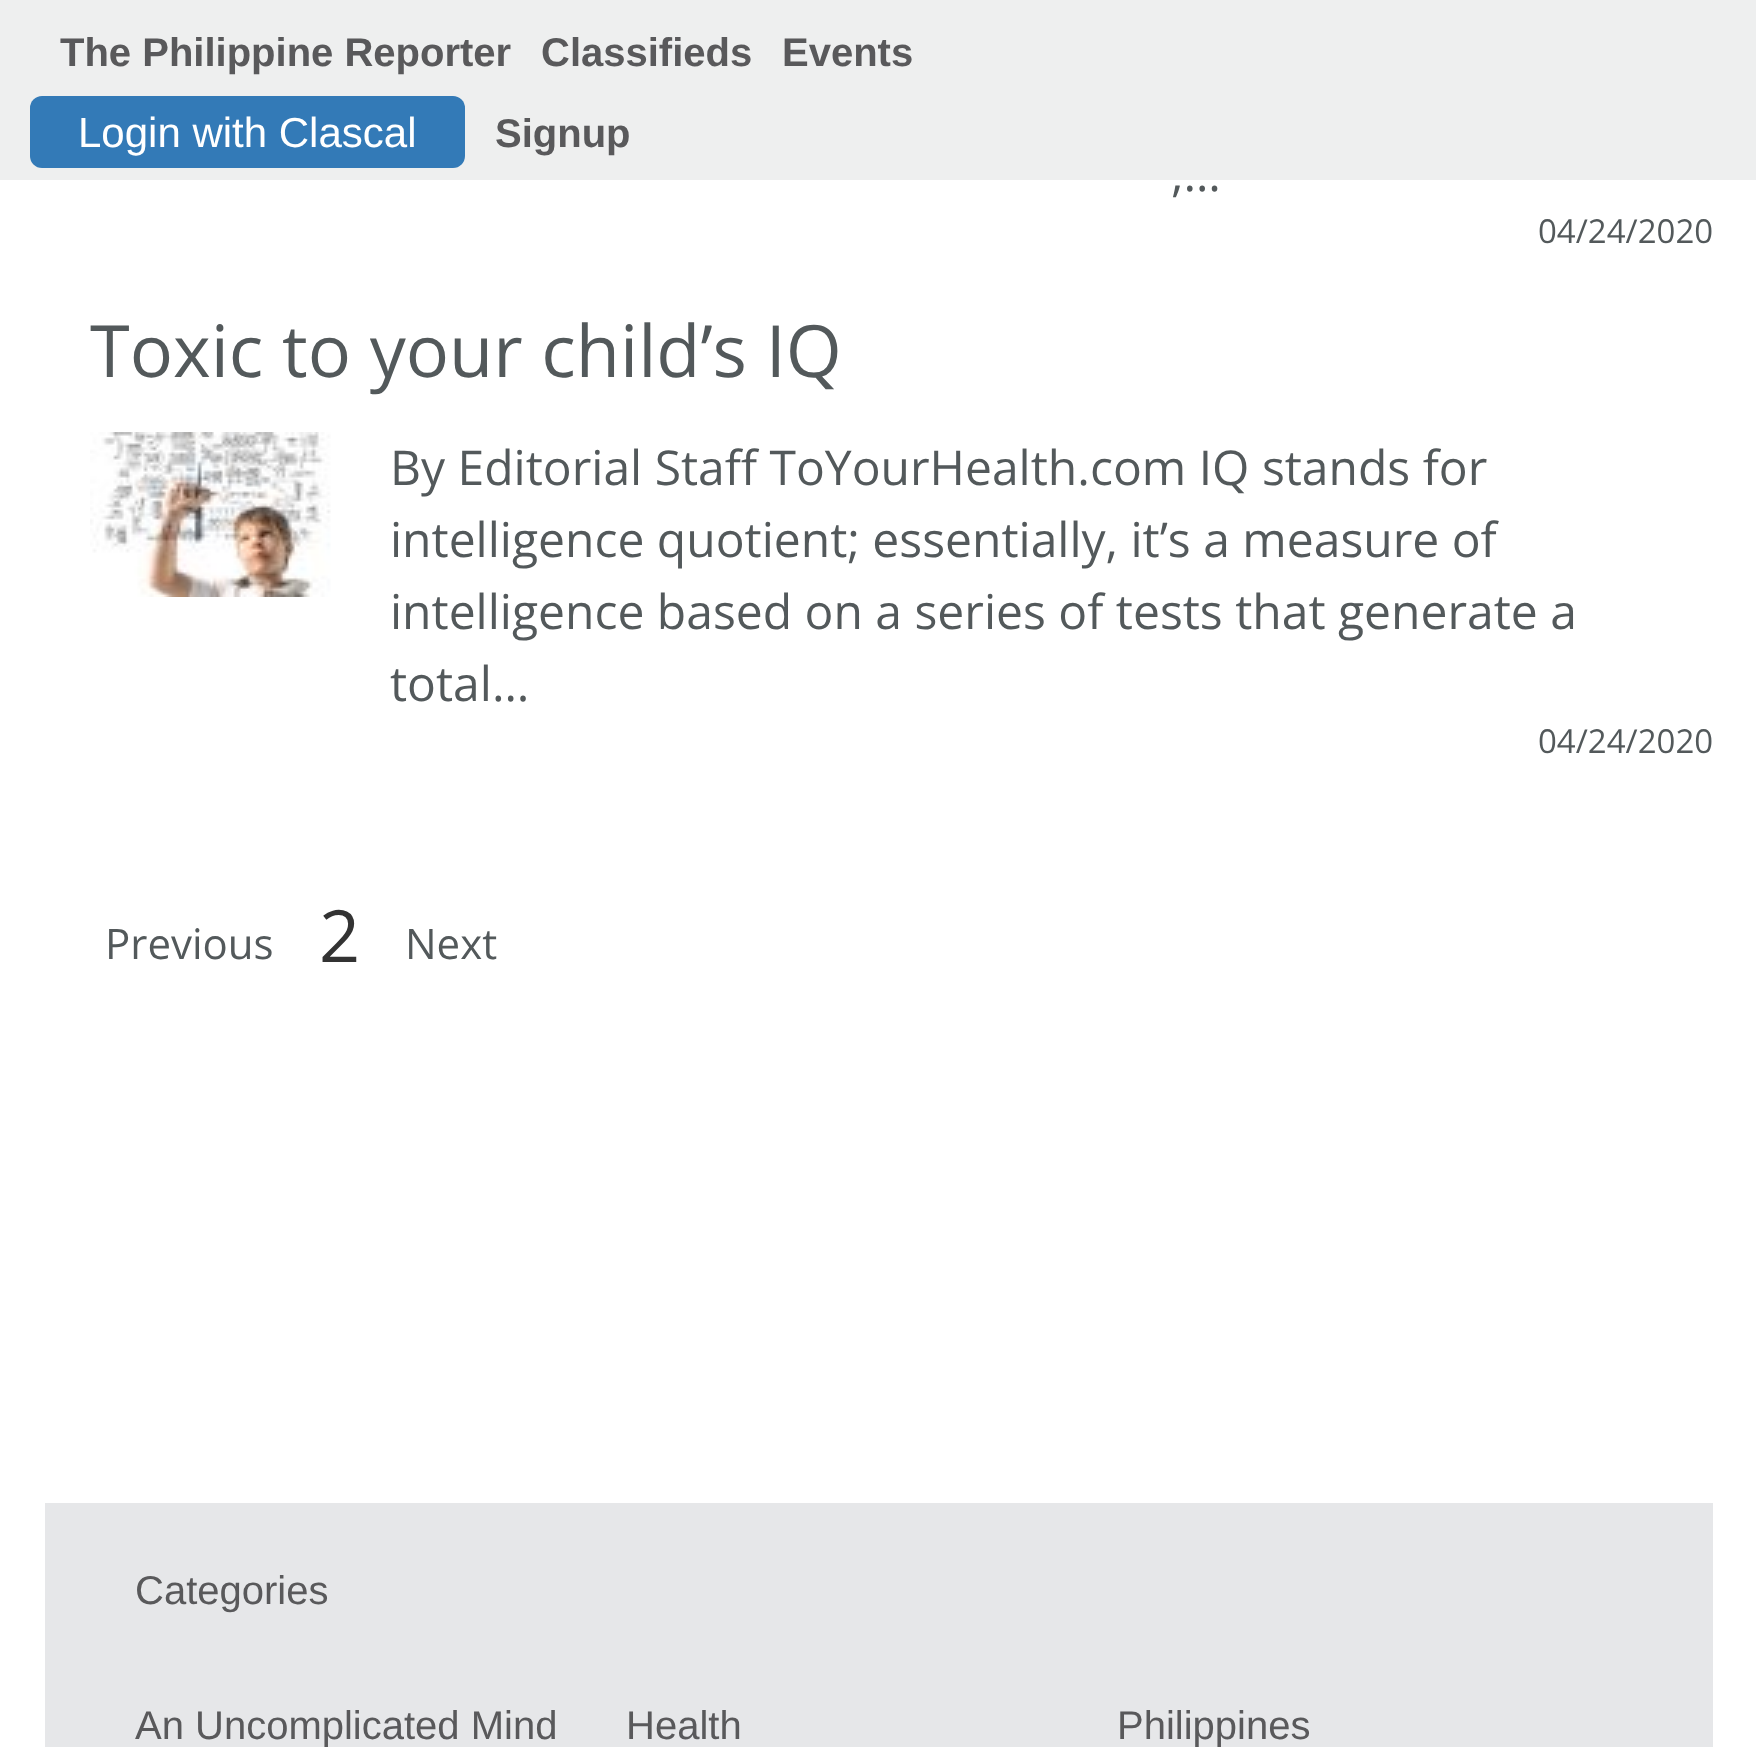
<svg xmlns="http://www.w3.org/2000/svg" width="1756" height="1747">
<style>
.a{font:bold 40px Liberation Sans;fill:#59595b}
.b{font:42px Liberation Sans;fill:#fff}
.c{font:48px Open Sans;fill:#53595b}
.d{font:33px Open Sans;fill:#53595b}
.e{font:72px Open Sans;fill:#53595b}
.f{font:42px Open Sans;fill:#53595b}
.g{font:72px Open Sans;fill:#333}
.h{font:40px Liberation Sans;fill:#59595b}
</style>
<rect width="100%" height="100%" fill="#fff"/>
<path fill="#eeefef" d="M0 0h1756v180H0z"/>
<rect fill="#337ab7" x="30" y="96" width="435" height="72" rx="12"/>
<image href="1.png" x="90" y="432" width="241" height="165"/>
<path fill="#e6e7e9" d="M45 1503h1668v244H45z"/>
<text class="a" x="60" y="66">The Philippine Reporter</text>
<text class="a" x="541" y="66">Classifieds</text>
<text class="a" x="782" y="66">Events</text>
<text class="b" x="78" y="147">Login with Clascal</text>
<text class="a" x="495" y="147">Signup</text>
<text class="c" x="1171" y="191">,…</text>
<text class="d" x="1538" y="243">04/24/2020</text>
<text class="e" x="90" y="377">Toxic to your child’s IQ</text>
<text class="c" x="390" y="485">By Editorial Staff ToYourHealth.com IQ stands for</text>
<text class="c" x="390" y="557">intelligence quotient; essentially, it’s a measure of</text>
<text class="c" x="390" y="629">intelligence based on a series of tests that generate a</text>
<text class="c" x="390" y="701">total…</text>
<text class="d" x="1538" y="753">04/24/2020</text>
<text class="f" x="105" y="959">Previous</text>
<text class="g" x="319" y="962">2</text>
<text class="f" x="405" y="959">Next</text>
<text class="h" x="135" y="1604">Categories</text>
<text class="h" x="135" y="1739">An Uncomplicated Mind</text>
<text class="h" x="626" y="1739">Health</text>
<text class="h" x="1117" y="1739">Philippines</text>
</svg>
